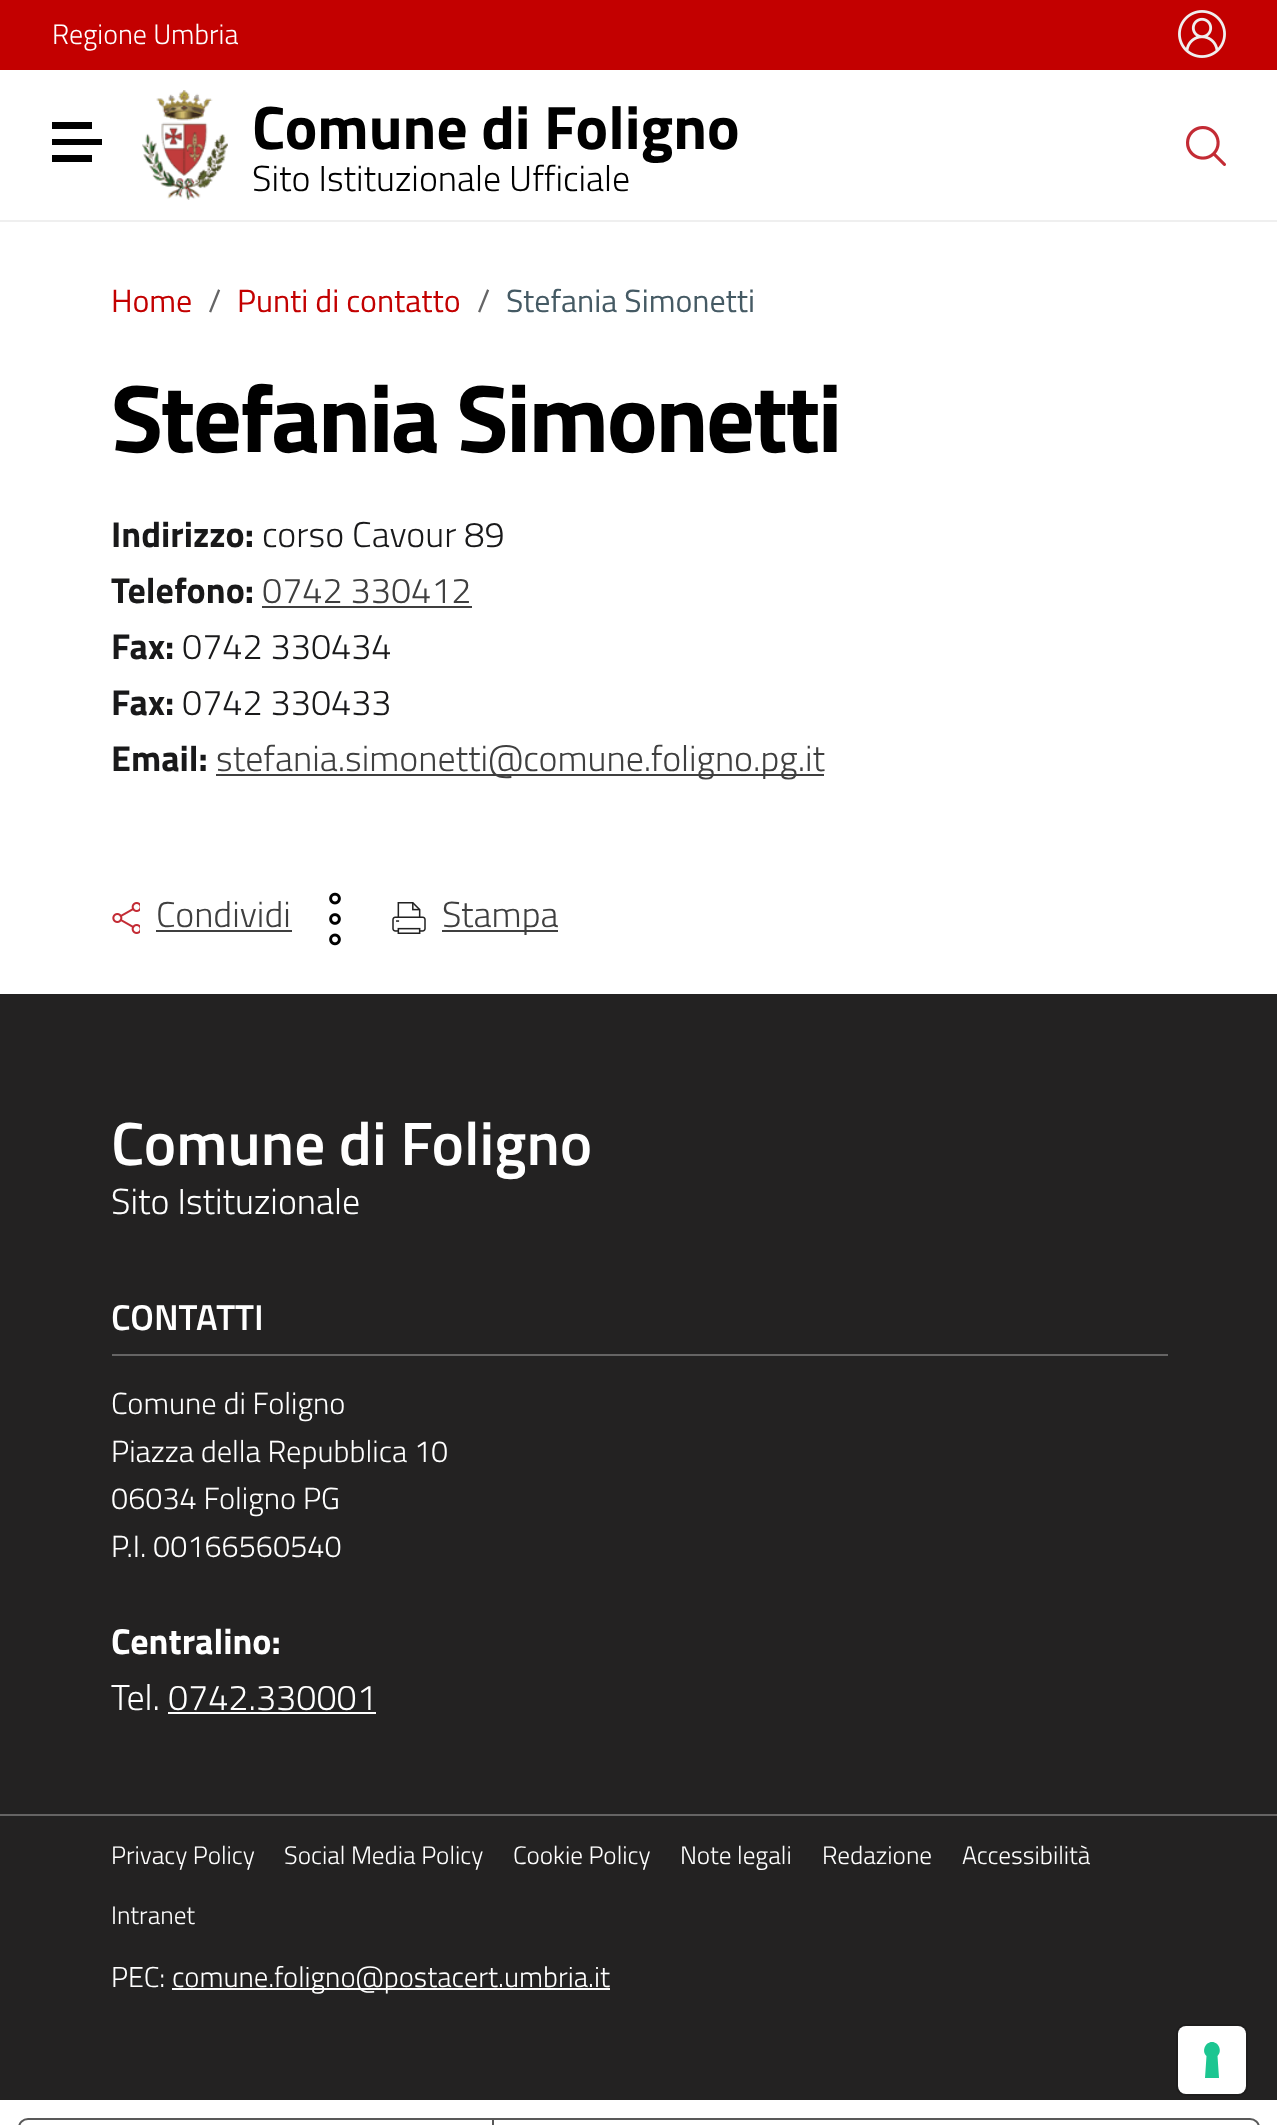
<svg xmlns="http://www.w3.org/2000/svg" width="1277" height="2125">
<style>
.a{font:300 28px Titillium Web;fill:#fff}
.b{font:bold 61.25px Titillium Web;fill:#000}
.c{font:300 36px Titillium Web;fill:#000}
.d{font:32px Titillium Web;fill:#c30000}
.e{font:32px Titillium Web;fill:#656566}
.f{font:32px Titillium Web;fill:#455a64}
.g{font:bold 96px Titillium Web;letter-spacing:-2.4px;fill:#000}
.h{font:bold 36px Titillium Web;fill:#19191a}
.i{font:300 36px Titillium Web;fill:#19191a}
.j{font:300 36px Titillium Web;fill:#3f3f3f}
.k{font:600 61.25px Titillium Web;fill:#fff}
.l{font:300 36px Titillium Web;fill:#fff}
.m{font:600 36px Titillium Web;fill:#fff}
.n{font:300 30.6px Titillium Web;fill:#fff}
.o{font:bold 36px Titillium Web;fill:#fff}
.p{font:300 25.25px Titillium Web;fill:#fff}
.q{font:300 28.75px Titillium Web;fill:#fff}
</style>
<rect width="100%" height="100%" fill="#fff"/>
<path fill="#c30000" d="M0 0h1277v70H0z"/>
<image href="1.png" x="1178" y="10" width="48" height="48"/>
<path fill="#efefef" d="M0 220h1277v2H0z"/>
<path fill="#000" d="M52 122h40v7H52z"/>
<path fill="#000" d="M52 139h50v6H52z"/>
<path fill="#000" d="M52 155h40v7H52z"/>
<image href="2.png" x="142" y="90" width="86" height="110"/>
<image href="3.png" x="1186" y="126" width="40" height="40"/>
<path fill="#3f3f3f" d="M262 606h210v2H262z"/>
<path fill="#3f3f3f" d="M216 774h608v2H216z"/>
<image href="4.png" x="112" y="902" width="28" height="32"/>
<path fill="#3f3f3f" d="M156 930h136v2H156z"/>
<image href="5.png" x="329" y="892" width="12" height="54"/>
<image href="6.png" x="392" y="902" width="34" height="32"/>
<path fill="#3f3f3f" d="M442 930h116v2H442z"/>
<path fill="#232222" d="M0 994h1277v1106H0z"/>
<path fill="#656464" d="M112 1354h1056v2H112z"/>
<path fill="#fff" d="M168 1712h208v2H168z"/>
<path fill="#656464" d="M0 1814h1277v2H0z"/>
<path fill="#fff" d="M172 1988h438v2H172z"/>
<rect fill="none" stroke="#1e1d1d" stroke-width="2" x="1177" y="2025" width="70" height="70" rx="9"/>
<rect fill="#fff" x="1178" y="2026" width="68" height="68" rx="8"/>
<path fill="#1cc691" fill-rule="evenodd" d="M1212 2042c7 0 10.5 9.5 5.5 14l1.5 22h-14l1.5-22c-5-4.5-1.5-14 5.5-14z"/>
<rect fill="none" stroke="#595959" stroke-width="2" x="19" y="2119" width="1240" height="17" rx="9"/>
<path fill="#595959" d="M492 2120h2v5H492z"/>
<text class="a" x="52" y="44">Regione Umbria</text>
<text class="b" x="252" y="149">Comune di Foligno</text>
<text class="c" x="252" y="191">Sito Istituzionale Ufficiale</text>
<text class="d" x="111" y="312">Home</text>
<text class="e" x="208" y="312">/</text>
<text class="d" x="237" y="312">Punti di contatto</text>
<text class="e" x="477" y="312">/</text>
<text class="f" x="506" y="312">Stefania Simonetti</text>
<text class="g" x="111" y="452">Stefania Simonetti</text>
<text class="h" x="111" y="547">Indirizzo:</text>
<text class="i" x="262" y="547">corso Cavour 89</text>
<text class="h" x="111" y="603">Telefono:</text>
<text class="j" x="262" y="603">0742 330412</text>
<text class="h" x="111" y="659">Fax:</text>
<text class="i" x="182" y="659">0742 330434</text>
<text class="h" x="111" y="715">Fax:</text>
<text class="i" x="182" y="715">0742 330433</text>
<text class="h" x="111" y="771">Email:</text>
<text class="j" x="216" y="771">stefania.simonetti@comune.foligno.pg.it</text>
<text class="j" x="156" y="927">Condividi</text>
<text class="j" x="442" y="927">Stampa</text>
<text class="k" x="111" y="1165">Comune di Foligno</text>
<text class="l" x="111" y="1214">Sito Istituzionale</text>
<text class="m" x="111" y="1330">CONTATTI</text>
<text class="n" x="111" y="1414">Comune di Foligno</text>
<text class="n" x="111" y="1462">Piazza della Repubblica 10</text>
<text class="n" x="111" y="1509">06034 Foligno PG</text>
<text class="n" x="111" y="1557">P.I. 00166560540</text>
<text class="o" x="111" y="1654">Centralino:</text>
<text class="l" x="111" y="1710">Tel. 0742.330001</text>
<text class="p" x="111" y="1864">Privacy Policy</text>
<text class="p" x="284" y="1864">Social Media Policy</text>
<text class="p" x="513" y="1864">Cookie Policy</text>
<text class="p" x="680" y="1864">Note legali</text>
<text class="p" x="822" y="1864">Redazione</text>
<text class="p" x="962" y="1864">Accessibilità</text>
<text class="p" x="111" y="1924">Intranet</text>
<text class="q" x="111" y="1987">PEC:</text>
<text class="q" x="172" y="1987">comune.foligno@postacert.umbria.it</text>
</svg>
